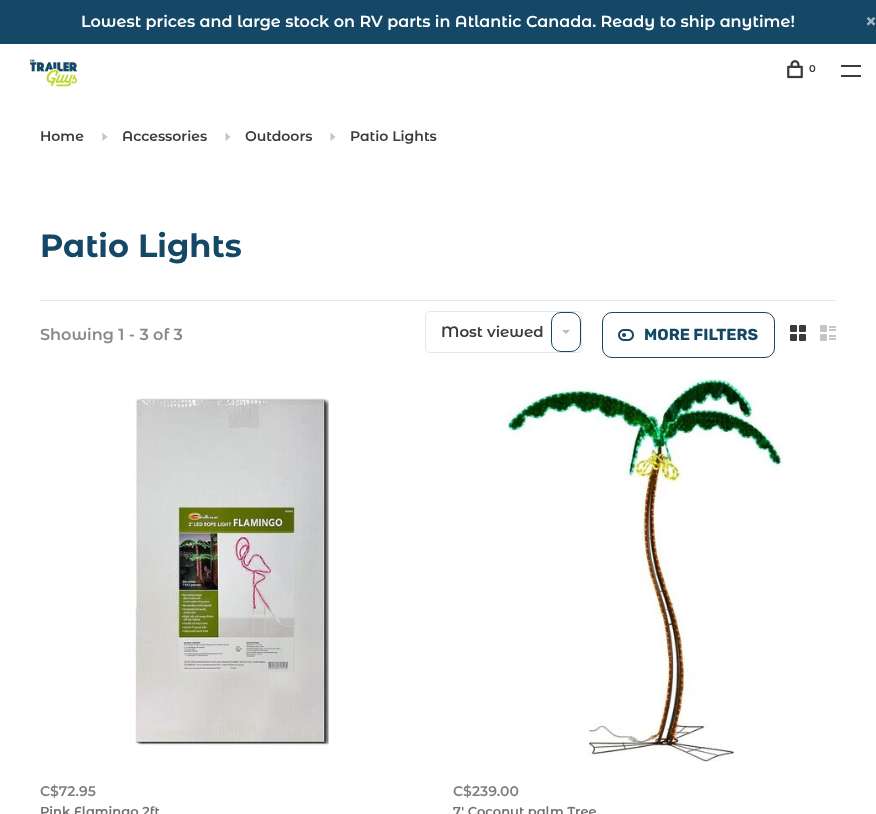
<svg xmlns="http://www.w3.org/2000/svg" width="876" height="814">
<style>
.a{font:600 16px Montserrat Alternates;fill:#fff}
.b{font:600 10px Montserrat Alternates;fill:#3b3b3b}
.c{font:600 14px Montserrat Alternates;fill:#3b3b3b}
.d{font:bold 32px Montserrat Alternates;fill:#144866}
.e{font:600 16px Montserrat Alternates;fill:#898989}
.f{font:600 15px Montserrat Alternates;fill:#3b3b3b}
.g{font:bold 16px Rubik;fill:#144866}
.h{font:600 14px Montserrat Alternates;fill:#808080}
.i{font:600 13px Montserrat Alternates;fill:#706f72}
</style>
<rect width="100%" height="100%" fill="#fff"/>
<path fill="#144866" d="M0 0h876v44H0z"/>
<image href="1.png" x="866" y="17" width="10" height="9"/>
<image href="2.png" x="30" y="59" width="48" height="28"/>
<image href="3.png" x="787" y="60" width="16" height="19"/>
<path fill="#3b3b3b" d="M841 65h20v2H841z"/>
<path fill="#3b3b3b" d="M841 75h20v2H841z"/>
<path fill="#c4c4c4" d="M102.5 141l5-4l-5-4.5z"/>
<path fill="#c4c4c4" d="M225.5 141l5-4l-5-4.5z"/>
<path fill="#c4c4c4" d="M330.5 141l5-4l-5-4.5z"/>
<path fill="#e6e6e6" d="M40 300h796v1H40z"/>
<rect fill="none" stroke="#e6e6e6" x="425.5" y="311.5" width="156" height="41" rx="4.5"/>
<rect fill="none" stroke="#144866" x="551.5" y="312.5" width="29" height="39" rx="9.5"/>
<path fill="#bbb" d="M562 330h8l-4 4z"/>
<rect fill="none" stroke="#144866" x="602.5" y="312.5" width="172" height="45" rx="9.5"/>
<image href="4.png" x="618" y="329" width="16" height="12"/>
<image href="5.png" x="790" y="325" width="16" height="16"/>
<image href="6.png" x="820" y="325" width="16" height="16"/>
<image href="7.png" x="134" y="398" width="195" height="349"/>
<image href="8.png" x="506" y="379" width="283" height="383"/>
<text class="a" x="81" y="27">Lowest prices and large stock on RV parts in Atlantic Canada. Ready to ship anytime!</text>
<text class="b" x="809" y="72">0</text>
<text class="c" x="40" y="141">Home</text>
<text class="c" x="122" y="141">Accessories</text>
<text class="c" x="245" y="141">Outdoors</text>
<text class="c" x="350" y="141">Patio Lights</text>
<text class="d" x="40" y="257">Patio Lights</text>
<text class="e" x="40" y="340">Showing 1 - 3 of 3</text>
<text class="f" x="441" y="337">Most viewed</text>
<text class="g" x="644" y="340">MORE FILTERS</text>
<text class="h" x="40" y="796">C$72.95</text>
<text class="i" x="40" y="816">Pink Flamingo 2ft</text>
<text class="h" x="453" y="796">C$239.00</text>
<text class="i" x="453" y="816">7' Coconut palm Tree</text>
</svg>
